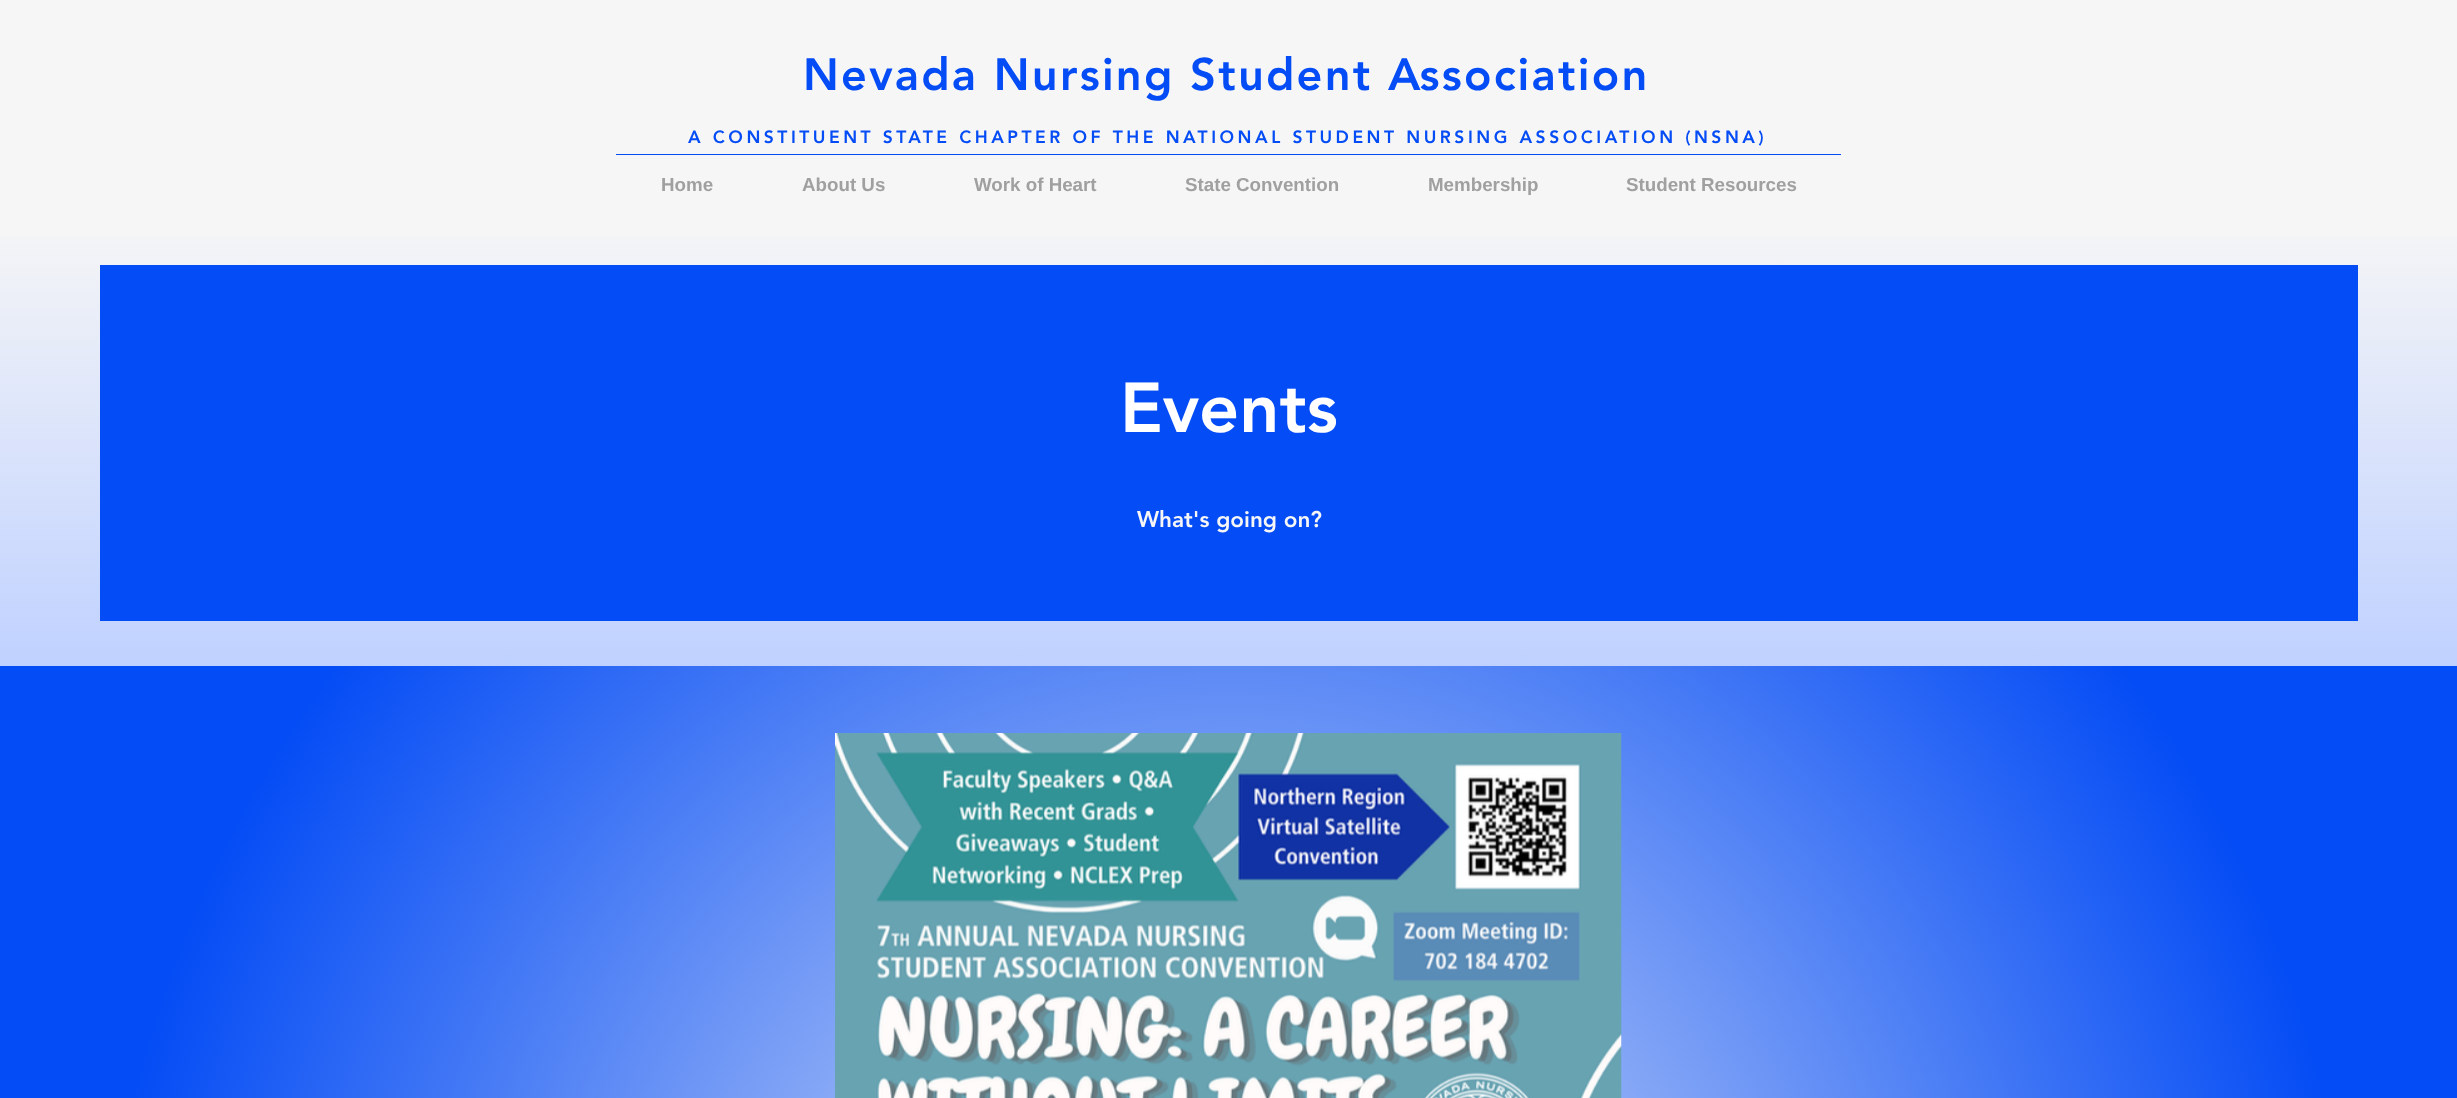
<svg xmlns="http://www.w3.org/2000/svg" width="2457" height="1098">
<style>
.a{font:900 45px 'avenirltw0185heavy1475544';letter-spacing:2.25px;fill:#044cf5}
.b{font:900 17.5px 'avenirltw0185heavy1475544';letter-spacing:3.5px;fill:#044cf5}
.c{font:bold 18.75px Liberation Sans;fill:#a0a0a0}
.d{font:900 70px 'avenirltw0185heavy1475544';fill:#fff}
.e{font:900 22.5px 'avenirltw0185heavy1475544';fill:#f6f6f6}
</style>
<defs>
<linearGradient id="g1" gradientUnits="userSpaceOnUse" x1="1229" y1="215" x2="1229" y2="666"><stop offset="0" stop-color="#f6f6f6"/><stop offset="1" stop-color="#bfd1ff"/></linearGradient>
<radialGradient id="g2" gradientUnits="userSpaceOnUse" cx="1229" cy="1348" r="1405"><stop offset="0.15" stop-color="#baccf6"/><stop offset="0.8" stop-color="#044cf5"/></radialGradient>
</defs>
<rect width="100%" height="100%" fill="#f6f6f6"/>
<path fill="#044cf5" d="M616 154h1225v1H616z"/>
<path fill="url(#g1)" d="M0 236h2457v430H0z"/>
<path fill="#044cf5" d="M100 265h2258v356H100z"/>
<path fill="url(#g2)" d="M0 666h2457v432H0z"/>
<image href="1.png" x="835" y="733" width="787" height="365"/>
<text class="a" x="803" y="90">Nevada Nursing Student Association</text>
<text class="b" x="688" y="143">A CONSTITUENT STATE CHAPTER OF THE NATIONAL STUDENT NURSING ASSOCIATION (NSNA)</text>
<text class="c" x="661" y="191">Home</text>
<text class="c" x="802" y="191">About Us</text>
<text class="c" x="974" y="191">Work of Heart</text>
<text class="c" x="1185" y="191">State Convention</text>
<text class="c" x="1428" y="191">Membership</text>
<text class="c" x="1626" y="191">Student Resources</text>
<text class="d" x="1120" y="432">Events</text>
<text class="e" x="1137" y="527">What's going on?</text>
</svg>
